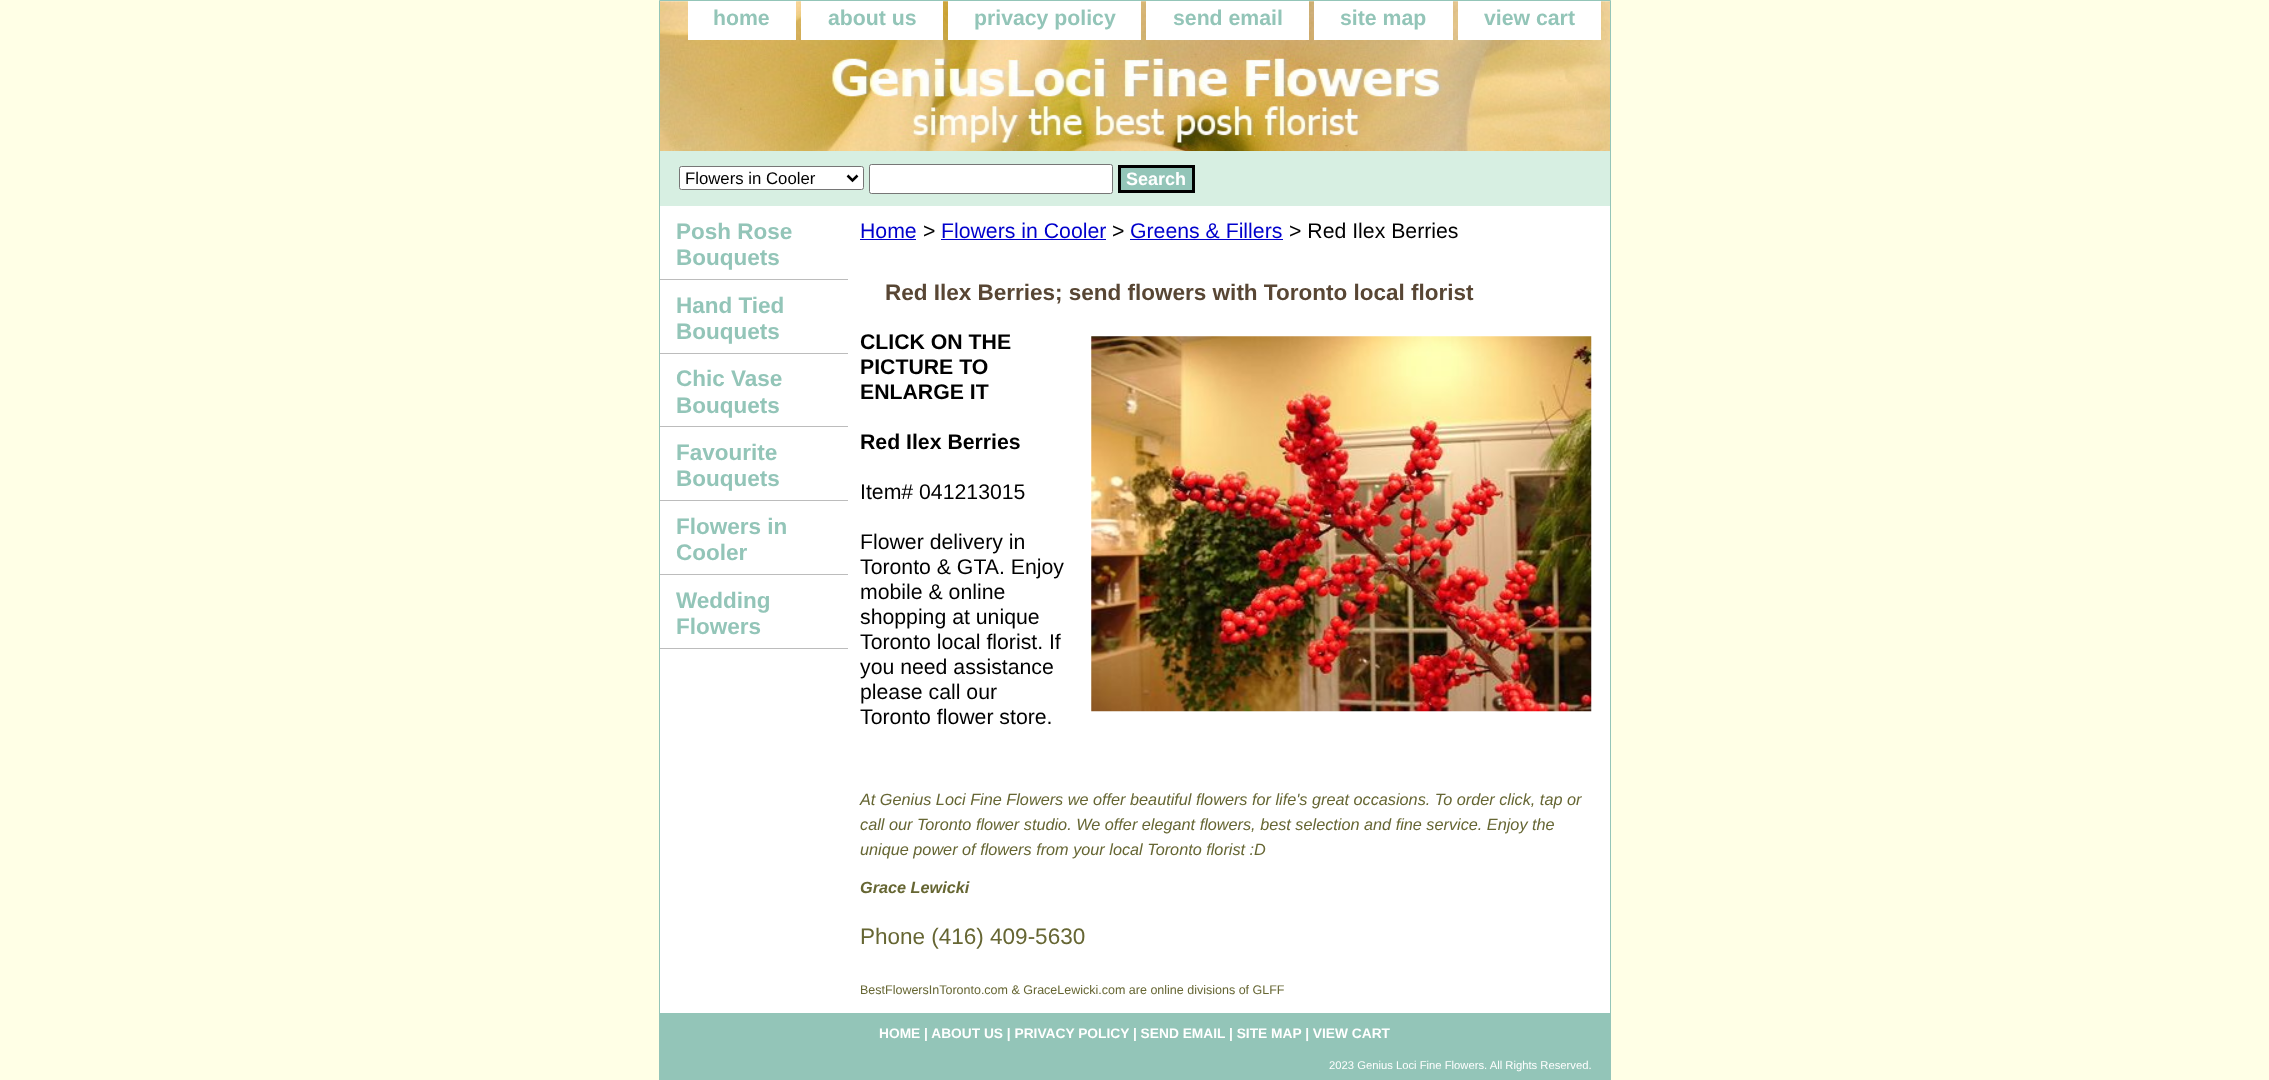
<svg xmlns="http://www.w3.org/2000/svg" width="2269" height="1080">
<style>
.a{font:bold 21.25px Liberation Sans;fill:#93c5b8}
.b{font:16.75px Liberation Sans;fill:#000}
.c{font:bold 18px Liberation Sans;fill:#fff}
.d{font:bold 22.5px Liberation Sans;fill:#93c5b8}
.e{font:21.25px Liberation Sans;fill:#00c}
.f{font:21.25px Liberation Sans;fill:#000}
.g{font:bold 22.5px Liberation Sans;fill:#584634}
.h{font:bold 21.25px Liberation Sans;fill:#000}
.i{font:italic 16.25px Liberation Sans;fill:#663}
.j{font:italic bold 16.25px Liberation Sans;fill:#663}
.k{font:22.5px Liberation Sans;fill:#663}
.l{font:12.5px Liberation Sans;fill:#663}
.m{font:bold 13.75px Liberation Sans;fill:#fff}
.n{font:11.25px Liberation Sans;fill:#fff}
</style>
<rect width="100%" height="100%" fill="#ffffe6"/>
<path fill="#fff" d="M660 1h950v1012H660z"/>
<path fill="none" stroke="#93c5b8" d="M659.5 0.5h951v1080H659.5z"/>
<image href="1.png" x="660" y="1" width="950" height="150"/>
<path fill="#fff" d="M688 1h108v39H688z"/>
<path fill="#fff" d="M801 1h142v39H801z"/>
<path fill="#fff" d="M948 1h193v39H948z"/>
<path fill="#fff" d="M1146 1h163v39H1146z"/>
<path fill="#fff" d="M1314 1h139v39H1314z"/>
<path fill="#fff" d="M1458 1h143v39H1458z"/>
<path fill="#d7efe2" d="M660 151h950v55H660z"/>
<rect fill="#fff" stroke="#767676" x="679.5" y="166.5" width="184" height="23" rx="2"/>
<path fill="none" stroke="#000" stroke-width="2.5" d="M847.5 175.5l5 5l5-5"/>
<rect fill="#fff" stroke="#767676" x="869.5" y="164.5" width="243" height="29" rx="2"/>
<path fill="#93c5b8" stroke="#000" stroke-width="3" d="M1119.5 166.5h74v25H1119.5z"/>
<path fill="#bcbcbc" d="M660 279h188v1H660z"/>
<path fill="#bcbcbc" d="M660 353h188v1H660z"/>
<path fill="#bcbcbc" d="M660 426h188v1H660z"/>
<path fill="#bcbcbc" d="M660 500h188v1H660z"/>
<path fill="#bcbcbc" d="M660 574h188v1H660z"/>
<path fill="#bcbcbc" d="M660 648h188v1H660z"/>
<path fill="#00c" d="M860 239h56v1H860z"/>
<path fill="#00c" d="M941 239h165v1H941z"/>
<path fill="#00c" d="M1130 239h153v1H1130z"/>
<image href="2.png" x="1091" y="336" width="501" height="376"/>
<path fill="#93c5b8" d="M660 1013h950v67H660z"/>
<text class="a" x="713" y="25">home</text>
<text class="a" x="828" y="25">about us</text>
<text class="a" x="974" y="25">privacy policy</text>
<text class="a" x="1173" y="25">send email</text>
<text class="a" x="1340" y="25">site map</text>
<text class="a" x="1484" y="25">view cart</text>
<text class="b" x="685" y="184">Flowers in Cooler</text>
<text class="c" x="1126" y="185">Search</text>
<text class="d" x="676" y="239">Posh Rose</text>
<text class="d" x="676" y="265">Bouquets</text>
<text class="d" x="676" y="313">Hand Tied</text>
<text class="d" x="676" y="339">Bouquets</text>
<text class="d" x="676" y="386">Chic Vase</text>
<text class="d" x="676" y="413">Bouquets</text>
<text class="d" x="676" y="460">Favourite</text>
<text class="d" x="676" y="486">Bouquets</text>
<text class="d" x="676" y="534">Flowers in</text>
<text class="d" x="676" y="560">Cooler</text>
<text class="d" x="676" y="608">Wedding</text>
<text class="d" x="676" y="634">Flowers</text>
<text class="e" x="860" y="238">Home</text>
<text class="f" x="923" y="238">&gt;</text>
<text class="e" x="941" y="238">Flowers in Cooler</text>
<text class="f" x="1112" y="238">&gt;</text>
<text class="e" x="1130" y="238">Greens &amp; Fillers</text>
<text class="f" x="1289" y="238">&gt; Red Ilex Berries</text>
<text class="g" x="885" y="300">Red Ilex Berries; send flowers with Toronto local florist</text>
<text class="h" x="860" y="349">CLICK ON THE</text>
<text class="h" x="860" y="374">PICTURE TO</text>
<text class="h" x="860" y="399">ENLARGE IT</text>
<text class="h" x="860" y="449">Red Ilex Berries</text>
<text class="f" x="860" y="499">Item# 041213015</text>
<text class="f" x="860" y="549">Flower delivery in</text>
<text class="f" x="860" y="574">Toronto &amp; GTA. Enjoy</text>
<text class="f" x="860" y="599">mobile &amp; online</text>
<text class="f" x="860" y="624">shopping at unique</text>
<text class="f" x="860" y="649">Toronto local florist. If</text>
<text class="f" x="860" y="674">you need assistance</text>
<text class="f" x="860" y="699">please call our</text>
<text class="f" x="860" y="724">Toronto flower store.</text>
<text class="i" x="860" y="805">At Genius Loci Fine Flowers we offer beautiful flowers for life's great occasions. To order click, tap or</text>
<text class="i" x="860" y="830">call our Toronto flower studio. We offer elegant flowers, best selection and fine service. Enjoy the</text>
<text class="i" x="860" y="855">unique power of flowers from your local Toronto florist :D</text>
<text class="j" x="860" y="893">Grace Lewicki</text>
<text class="k" x="860" y="944">Phone (416) 409-5630</text>
<text class="l" x="860" y="994">BestFlowersInToronto.com &amp; GraceLewicki.com are online divisions of GLFF</text>
<text class="m" x="879" y="1038">HOME | ABOUT US | PRIVACY POLICY | SEND EMAIL | SITE MAP | VIEW CART</text>
<text class="n" x="1329" y="1069">2023 Genius Loci Fine Flowers. All Rights Reserved.</text>
</svg>
